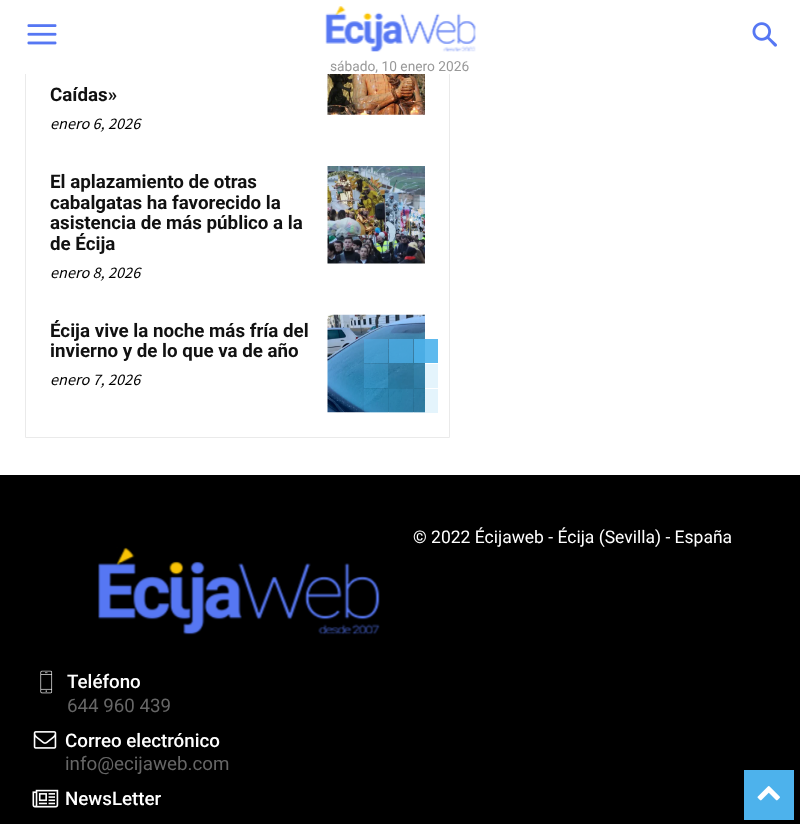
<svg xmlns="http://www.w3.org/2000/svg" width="800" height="824">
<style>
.a{font:13.75px Roboto;fill:#999}
.b{font:bold 18.75px Roboto;fill:#111}
.c{font:italic 16.25px Source Sans Pro;fill:#000}
.d{font:17.5px Roboto;fill:#fff}
.e{font:500 18.75px Roboto;fill:#fff}
.f{font:18.75px Roboto;fill:#666}
</style>
<rect width="100%" height="100%" fill="#fff"/>
<path fill="none" stroke="#eaeaea" d="M25.5 -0.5h424v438H25.5z"/>
<path fill="#fff" d="M25 0h425v74H25z"/>
<image href="1.png" x="752" y="22" width="25" height="25"/>
<image href="2.png" x="27" y="24" width="30" height="21"/>
<image href="3.png" x="325" y="6" width="151" height="46"/>
<image href="4.png" x="327" y="74" width="98" height="41"/>
<image href="5.png" x="327" y="166" width="98" height="98"/>
<image href="6.png" x="327" y="314" width="98" height="99"/>
<path fill="#4db2ec80" d="M364 339h24v24H364z"/>
<path fill="#4db2ecb3" d="M389 339h24v24H389z"/>
<path fill="#4db2ece6" d="M414 339h24v24H414z"/>
<path fill="#4db2ec4d" d="M364 364h24v24H364z"/>
<path fill="#4db2ec26" d="M414 364h24v24H414z"/>
<path fill="#4db2ec26" d="M364 389h24v24H364z"/>
<path fill="#4db2ec26" d="M389 389h24v24H389z"/>
<path fill="#4db2ec26" d="M414 389h24v24H414z"/>
<path fill="#000" d="M0 475h800v349H0z"/>
<image href="7.png" x="98" y="547" width="282" height="88"/>
<image href="8.png" x="40" y="670" width="13" height="24"/>
<image href="9.png" x="33" y="731" width="24" height="18"/>
<image href="10.png" x="32" y="789" width="27" height="19"/>
<path fill="#4db2ec" d="M744 770h50v50H744z"/>
<image href="11.png" x="757" y="786" width="23" height="15"/>
<text class="a" x="330" y="71">sábado, 10 enero 2026</text>
<text class="b" x="50" y="101">Caídas»</text>
<text class="c" x="50" y="129">enero 6, 2026</text>
<text class="b" x="50" y="188">El aplazamiento de otras</text>
<text class="b" x="50" y="209">cabalgatas ha favorecido la</text>
<text class="b" x="50" y="229">asistencia de más público a la</text>
<text class="b" x="50" y="250">de Écija</text>
<text class="c" x="50" y="278">enero 8, 2026</text>
<text class="b" x="50" y="337">Écija vive la noche más fría del</text>
<text class="b" x="50" y="357">invierno y de lo que va de año</text>
<text class="c" x="50" y="385">enero 7, 2026</text>
<text class="d" x="413" y="543">© 2022 Écijaweb - Écija (Sevilla) - España</text>
<text class="e" x="67" y="688">Teléfono</text>
<text class="f" x="67" y="712">644 960 439</text>
<text class="e" x="65" y="747">Correo electrónico</text>
<text class="f" x="65" y="770">info@ecijaweb.com</text>
<text class="e" x="65" y="805">NewsLetter</text>
</svg>
